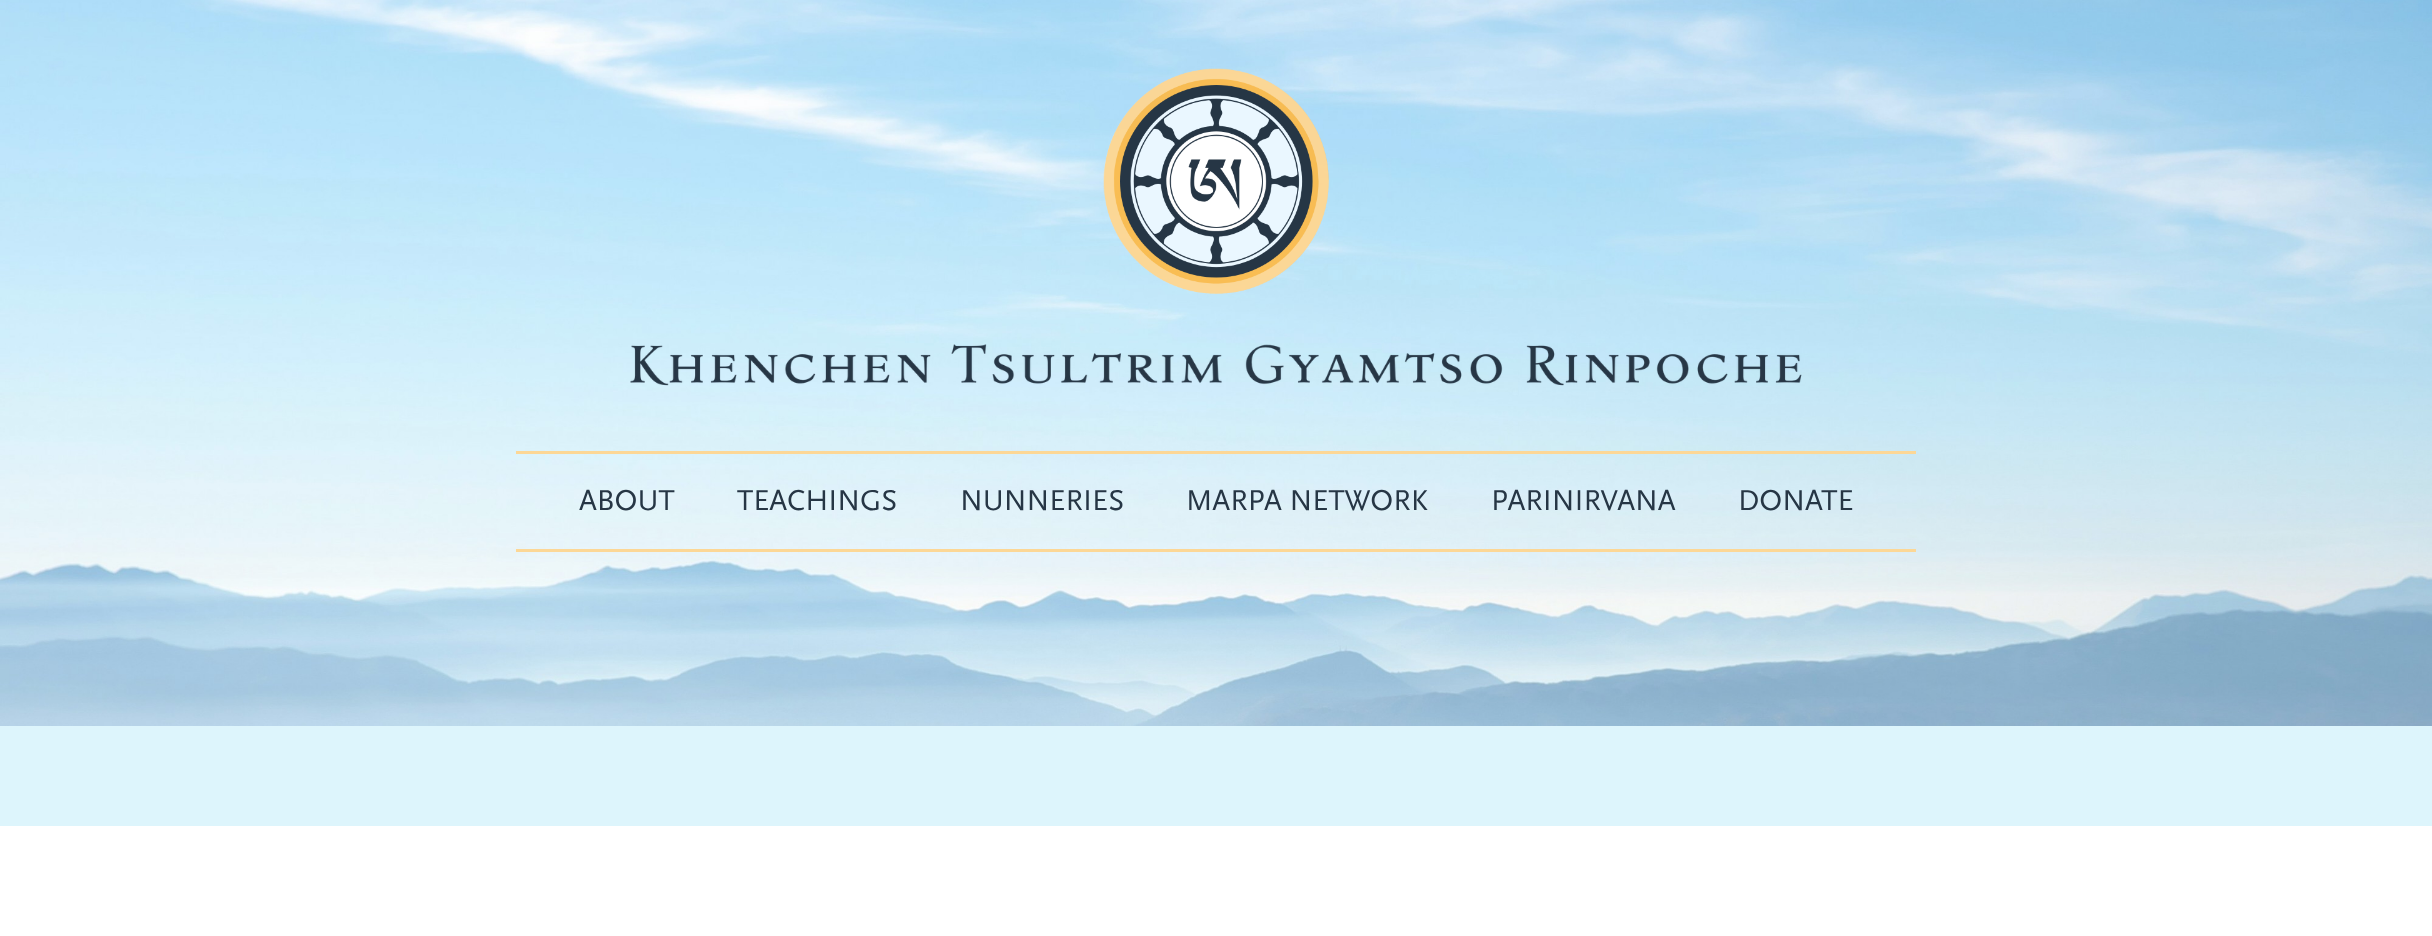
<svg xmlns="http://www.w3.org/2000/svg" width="2432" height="936">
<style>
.a{font:30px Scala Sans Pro;fill:#263645}
</style>
<rect width="100%" height="100%" fill="#fff"/>
<image href="1.png" x="0" y="0" width="2432" height="726"/>
<image href="2.png" x="1103" y="68" width="226" height="226"/>
<image href="3.png" x="630" y="344" width="1172" height="42"/>
<path fill="#fcd796" d="M516 451h1400v3H516z"/>
<path fill="#fcd796" d="M516 549h1400v3H516z"/>
<path fill="#ddf5fc" d="M0 726h2432v100H0z"/>
<text class="a" x="579" y="510">ABOUT</text>
<text class="a" x="737" y="510">TEACHINGS</text>
<text class="a" x="960" y="510">NUNNERIES</text>
<text class="a" x="1186" y="510">MARPA NETWORK</text>
<text class="a" x="1491" y="510">PARINIRVANA</text>
<text class="a" x="1738" y="510">DONATE</text>
</svg>
